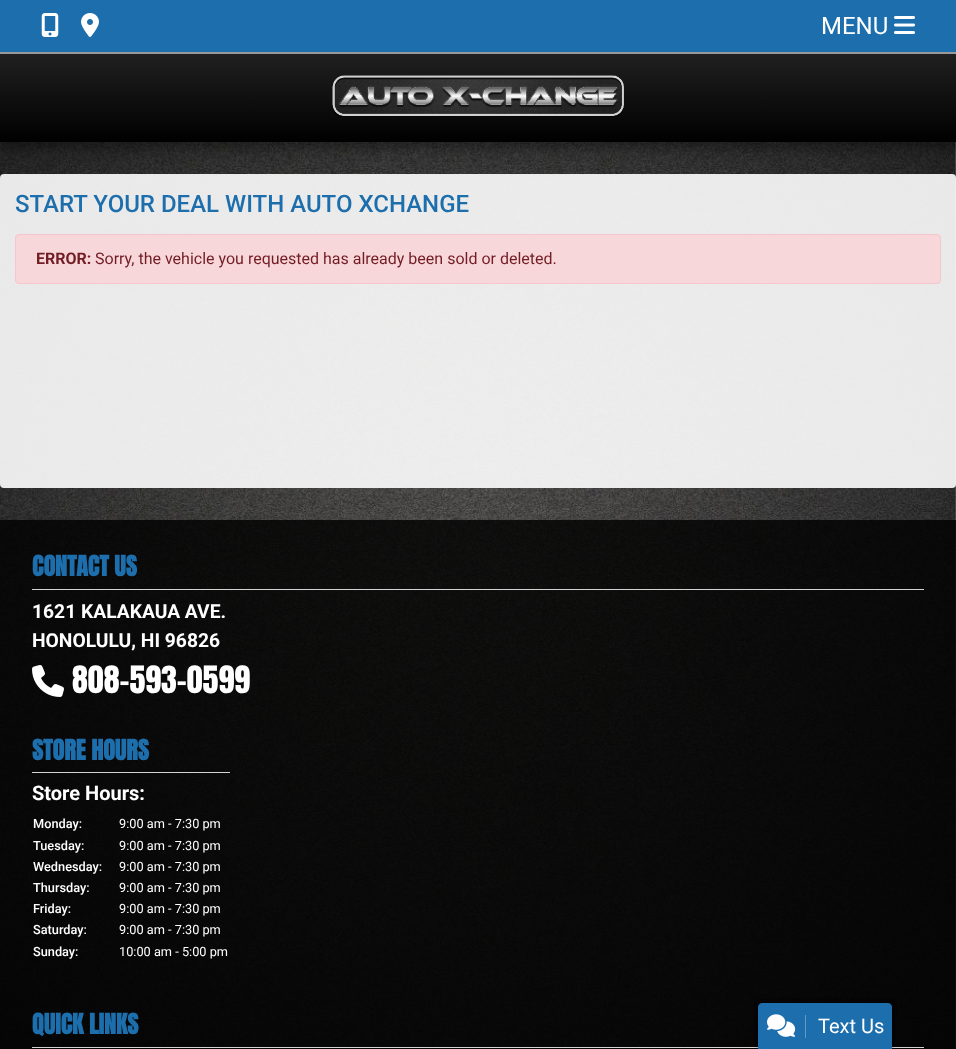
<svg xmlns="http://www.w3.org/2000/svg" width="956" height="1049">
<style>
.a{font:24px Roboto;fill:#fff}
.b{font:500 24px Roboto;fill:#1d6eac}
.c{font:bold 16px Roboto;fill:#721c24}
.d{font:16px Roboto;fill:#721c24}
.e{font:bold 24px Anton;fill:#1d6eac}
.f{font:bold 19.25px Roboto;fill:#fff}
.g{font:32px Anton;fill:#fff}
.h{font:bold 20px Roboto;fill:#fff}
.i{font:500 12.75px Roboto;fill:#fff}
.j{font:12.75px Roboto;fill:#fff}
.k{font:20px Roboto;fill:#fff}
</style>
<defs>
<linearGradient id="g1" gradientUnits="userSpaceOnUse" x1="478" y1="0" x2="478" y2="142"><stop offset="0" stop-color="#333"/><stop offset="1" stop-color="#000"/></linearGradient>
</defs>
<rect width="100%" height="100%" fill="#fff"/>
<image href="1.png" x="0" y="142" width="956" height="907"/>
<path fill="#0000001a" filter="blur(2.5px)" d="M0 5h956v142H0z"/>
<path fill="#00000033" filter="blur(5px)" d="M0 10h956v142H0z"/>
<path fill="url(#g1)" d="M0 54h956v88H0z"/>
<path fill="#1d6eac" d="M0 0h956v52H0z"/>
<path fill="#999" d="M0 52h956v2H0z"/>
<image href="2.png" x="41" y="13" width="18" height="24"/>
<image href="3.png" x="81" y="13" width="18" height="24"/>
<image href="4.png" x="894" y="16" width="21" height="18"/>
<image href="5.png" x="332" y="75" width="292" height="42"/>
<rect fill="#ffffffe6" y="174" width="956" height="314" rx="4"/>
<rect fill="#f8d7da" stroke="#f5c6cb" x="15.5" y="234.5" width="925" height="49" rx="3.5"/>
<path fill="#000000cc" d="M0 520h956v529H0z"/>
<path fill="#d3d3d3" d="M32 589h892v1H32z"/>
<image href="6.png" x="32" y="665" width="32" height="32"/>
<path fill="#d3d3d3" d="M32 772h198v1H32z"/>
<path fill="#d3d3d3" d="M32 1047h892v1H32z"/>
<rect fill="#00000040" filter="blur(1px)" x="757" y="1001" width="136" height="48" rx="5"/>
<rect fill="#00000026" filter="blur(1.5px)" x="756" y="1000" width="138" height="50" rx="6"/>
<path fill="#1d6eac" d="M762 1003h126c2 0 4 2 4 4v42h-134v-42c0-2 2-4 4-4z"/>
<path fill="#619ac5" d="M805 1015h1v23H805z"/>
<image href="7.png" x="767" y="1014" width="29" height="23"/>
<text class="a" x="821" y="34">MENU</text>
<text class="b" x="15" y="212">START YOUR DEAL WITH AUTO XCHANGE</text>
<text class="c" x="36" y="264">ERROR:</text>
<text class="d" x="95" y="264">Sorry, the vehicle you requested has already been sold or deleted.</text>
<text class="e" x="32" y="576">CONTACT US</text>
<text class="f" x="32" y="618">1621 KALAKAUA AVE.</text>
<text class="f" x="32" y="647">HONOLULU, HI 96826</text>
<text class="g" x="72" y="693">808-593-0599</text>
<text class="e" x="32" y="760">STORE HOURS</text>
<text class="h" x="32" y="800">Store Hours:</text>
<text class="i" x="33" y="828">Monday:</text>
<text class="j" x="119" y="828">9:00 am - 7:30 pm</text>
<text class="i" x="33" y="850">Tuesday:</text>
<text class="j" x="119" y="850">9:00 am - 7:30 pm</text>
<text class="i" x="33" y="871">Wednesday:</text>
<text class="j" x="119" y="871">9:00 am - 7:30 pm</text>
<text class="i" x="33" y="892">Thursday:</text>
<text class="j" x="119" y="892">9:00 am - 7:30 pm</text>
<text class="i" x="33" y="913">Friday:</text>
<text class="j" x="119" y="913">9:00 am - 7:30 pm</text>
<text class="i" x="33" y="934">Saturday:</text>
<text class="j" x="119" y="934">9:00 am - 7:30 pm</text>
<text class="i" x="33" y="956">Sunday:</text>
<text class="j" x="119" y="956">10:00 am - 5:00 pm</text>
<text class="e" x="32" y="1034">QUICK LINKS</text>
<text class="k" x="818" y="1033">Text Us</text>
</svg>
